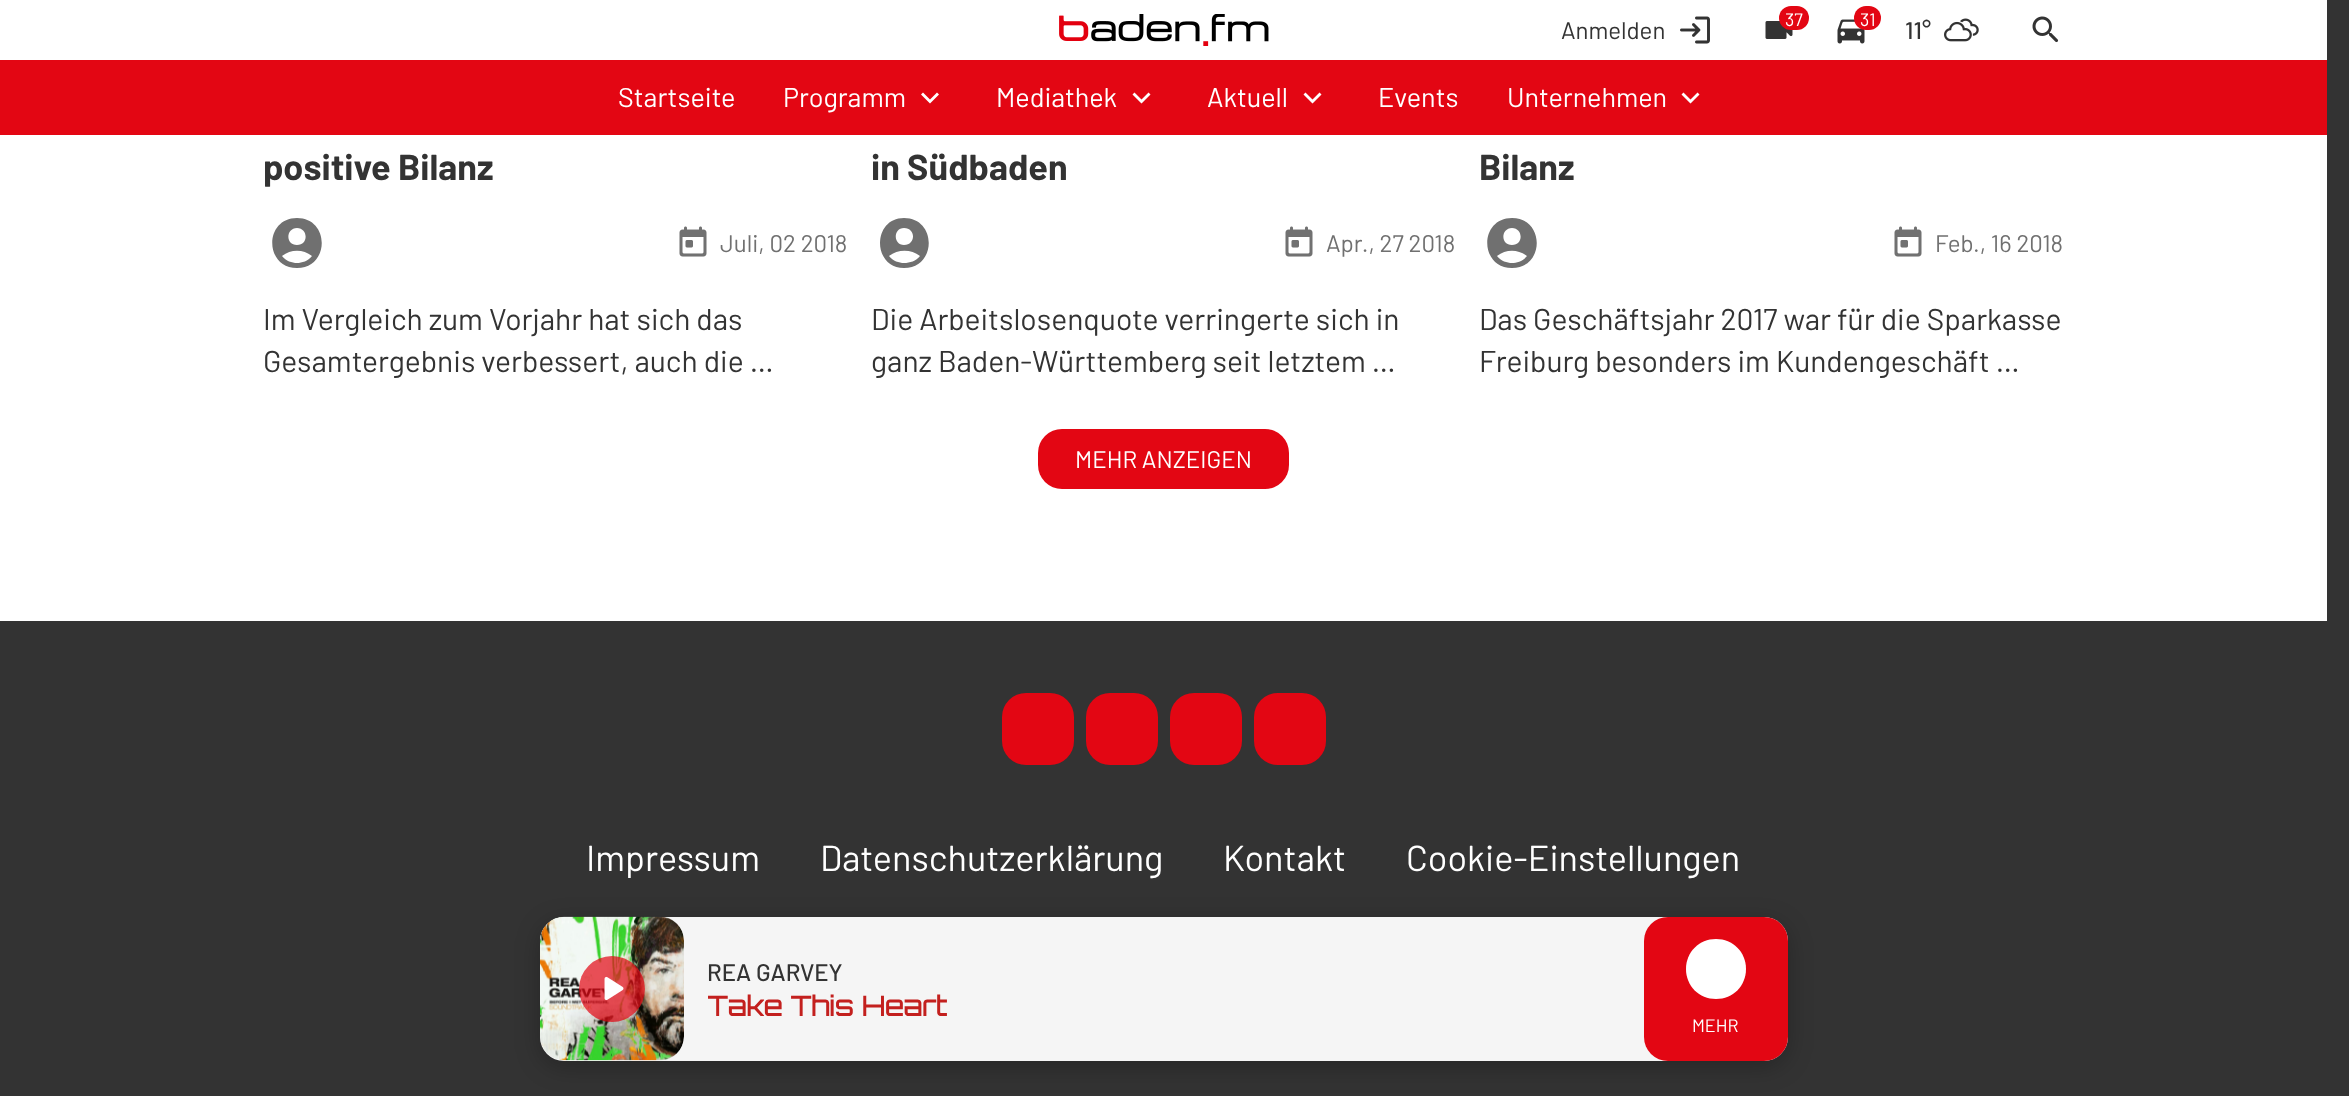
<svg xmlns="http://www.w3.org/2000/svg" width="2349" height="1096">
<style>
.a{font:24px Barlow;fill:#333}
.b{font:18px Barlow;fill:#fff}
.c{font:500 24px Barlow;fill:#333}
.d{font:27px Barlow;fill:#fff}
.e{font:bold 36px Barlow;fill:#333}
.f{font:24px Barlow;fill:#707070}
.g{font:30px Barlow;fill:#333}
.h{font:24px Barlow;fill:#fff}
.i{font:36px Barlow;fill:#fff}
.j{font:bold 27px Orbitron;fill:#c3201e}
</style>
<defs>
<clipPath id="clip1"><path d="M708 990h912v33H708z"/></clipPath>
</defs>
<rect width="100%" height="100%" fill="#333"/>
<path fill="#fff" d="M0 135h2327v486H0z"/>
<path fill="#fff" d="M0 0h2327v60H0z"/>
<image href="1.png" x="1059" y="14" width="210" height="32"/>
<image href="2.png" x="1680" y="16" width="30" height="28"/>
<image href="3.png" x="1765" y="21" width="28" height="18"/>
<rect fill="#e30613" x="1779" y="6" width="30" height="24" rx="12"/>
<image href="4.png" x="1837" y="19" width="28" height="25"/>
<rect fill="#e30613" x="1854" y="6" width="27" height="24" rx="12"/>
<image href="5.png" x="1944" y="18" width="35" height="24"/>
<image href="6.png" x="2032" y="16" width="27" height="27"/>
<path fill="#e30613" d="M0 60h2327v75H0z"/>
<path fill="#fff" d="M937 92.5l2 2l-9 9l-9-9l2-2l7 7z"/>
<path fill="#fff" d="M1148.5 92.5l2 2l-9 9l-9-9l2-2l7 7z"/>
<path fill="#fff" d="M1319.5 92.5l2 2l-9 9l-9-9l2-2l7 7z"/>
<path fill="#fff" d="M1697.5 92.5l2 2l-9 9l-9-9l2-2l7 7z"/>
<path fill="#707070" d="M297 218c-33 0-33 50 0 50c33 0 33-50 0-50zm0 10c11 0 12 17 0 17c-12 0-11-17 0-17zm0 35c-5 0-11-2-15-7c9-7 21-7 30 0c-4 5-10 7-15 7z"/>
<image href="7.png" x="679" y="226" width="28" height="31"/>
<path fill="#707070" d="M904 218c-32 0-32 50 0 50c33 0 33-50 0-50zm0 10c12 0 12 17 0 17c-11 0-11-17 0-17zm0 35c-5 0-11-2-15-7c9-7 22-7 31 0c-4 5-10 7-16 7z"/>
<image href="7.png" x="1285" y="226" width="28" height="31"/>
<path fill="#707070" d="M1512 218c-33 0-33 50 0 50c33 0 33-50 0-50zm0 10c11 0 12 17 0 17c-12 0-11-17 0-17zm0 35c-5 0-11-2-15-7c9-7 21-7 30 0c-4 5-10 7-15 7z"/>
<image href="7.png" x="1894" y="226" width="28" height="31"/>
<rect fill="#e30613" x="1038" y="429" width="251" height="60" rx="24"/>
<rect fill="#e30613" x="1002" y="693" width="72" height="72" rx="24"/>
<rect fill="#e30613" x="1086" y="693" width="72" height="72" rx="24"/>
<rect fill="#e30613" x="1170" y="693" width="72" height="72" rx="24"/>
<rect fill="#e30613" x="1254" y="693" width="72" height="72" rx="24"/>
<rect fill="#00000040" filter="blur(12px)" x="540" y="923" width="1248" height="144" rx="24"/>
<rect fill="#f5f5f5" x="540" y="917" width="1248" height="144" rx="24"/>
<image href="8.png" x="540" y="916" width="144" height="145"/>
<circle fill="#e30613b3" cx="612" cy="989" r="33"/>
<image href="9.png" x="604" y="976" width="20" height="25"/>
<rect fill="#e30613" x="1644" y="917" width="144" height="144" rx="24"/>
<path fill="#fff" d="M1716 939c17 0 30 13 30 30c0 17-13 30-30 30c-17 0-30-13-30-30c0-17 13-30 30-30z"/>
<text class="a" x="1561" y="39">Anmelden</text>
<text class="b" x="1785" y="26">37</text>
<text class="b" x="1860" y="26">31</text>
<text class="c" x="1905" y="39">11°</text>
<text class="d" x="618" y="107">Startseite</text>
<text class="d" x="783" y="107">Programm</text>
<text class="d" x="996" y="107">Mediathek</text>
<text class="d" x="1207" y="107">Aktuell</text>
<text class="d" x="1378" y="107">Events</text>
<text class="d" x="1507" y="107">Unternehmen</text>
<text class="e" x="263" y="180">positive Bilanz</text>
<text class="f" x="720" y="252">Juli, 02 2018</text>
<text class="g" x="263" y="330">Im Vergleich zum Vorjahr hat sich das</text>
<text class="g" x="263" y="372">Gesamtergebnis verbessert, auch die …</text>
<text class="e" x="871" y="180">in Südbaden</text>
<text class="f" x="1326" y="252">Apr., 27 2018</text>
<text class="g" x="871" y="330">Die Arbeitslosenquote verringerte sich in</text>
<text class="g" x="871" y="372">ganz Baden-Württemberg seit letztem …</text>
<text class="e" x="1479" y="180">Bilanz</text>
<text class="f" x="1935" y="252">Feb., 16 2018</text>
<text class="g" x="1479" y="330">Das Geschäftsjahr 2017 war für die Sparkasse</text>
<text class="g" x="1479" y="372">Freiburg besonders im Kundengeschäft …</text>
<text class="h" x="1075" y="468">MEHR ANZEIGEN</text>
<text class="i" x="586" y="871">Impressum</text>
<text class="i" x="820" y="871">Datenschutzerklärung</text>
<text class="i" x="1223" y="871">Kontakt</text>
<text class="i" x="1406" y="871">Cookie-Einstellungen</text>
<text class="c" x="707" y="981">REA GARVEY</text>
<g clip-path="url(#clip1)">
<text class="j" x="707" y="1016" word-spacing="1">Take This Heart</text>
</g>
<text class="b" x="1692" y="1032">MEHR</text>
</svg>
